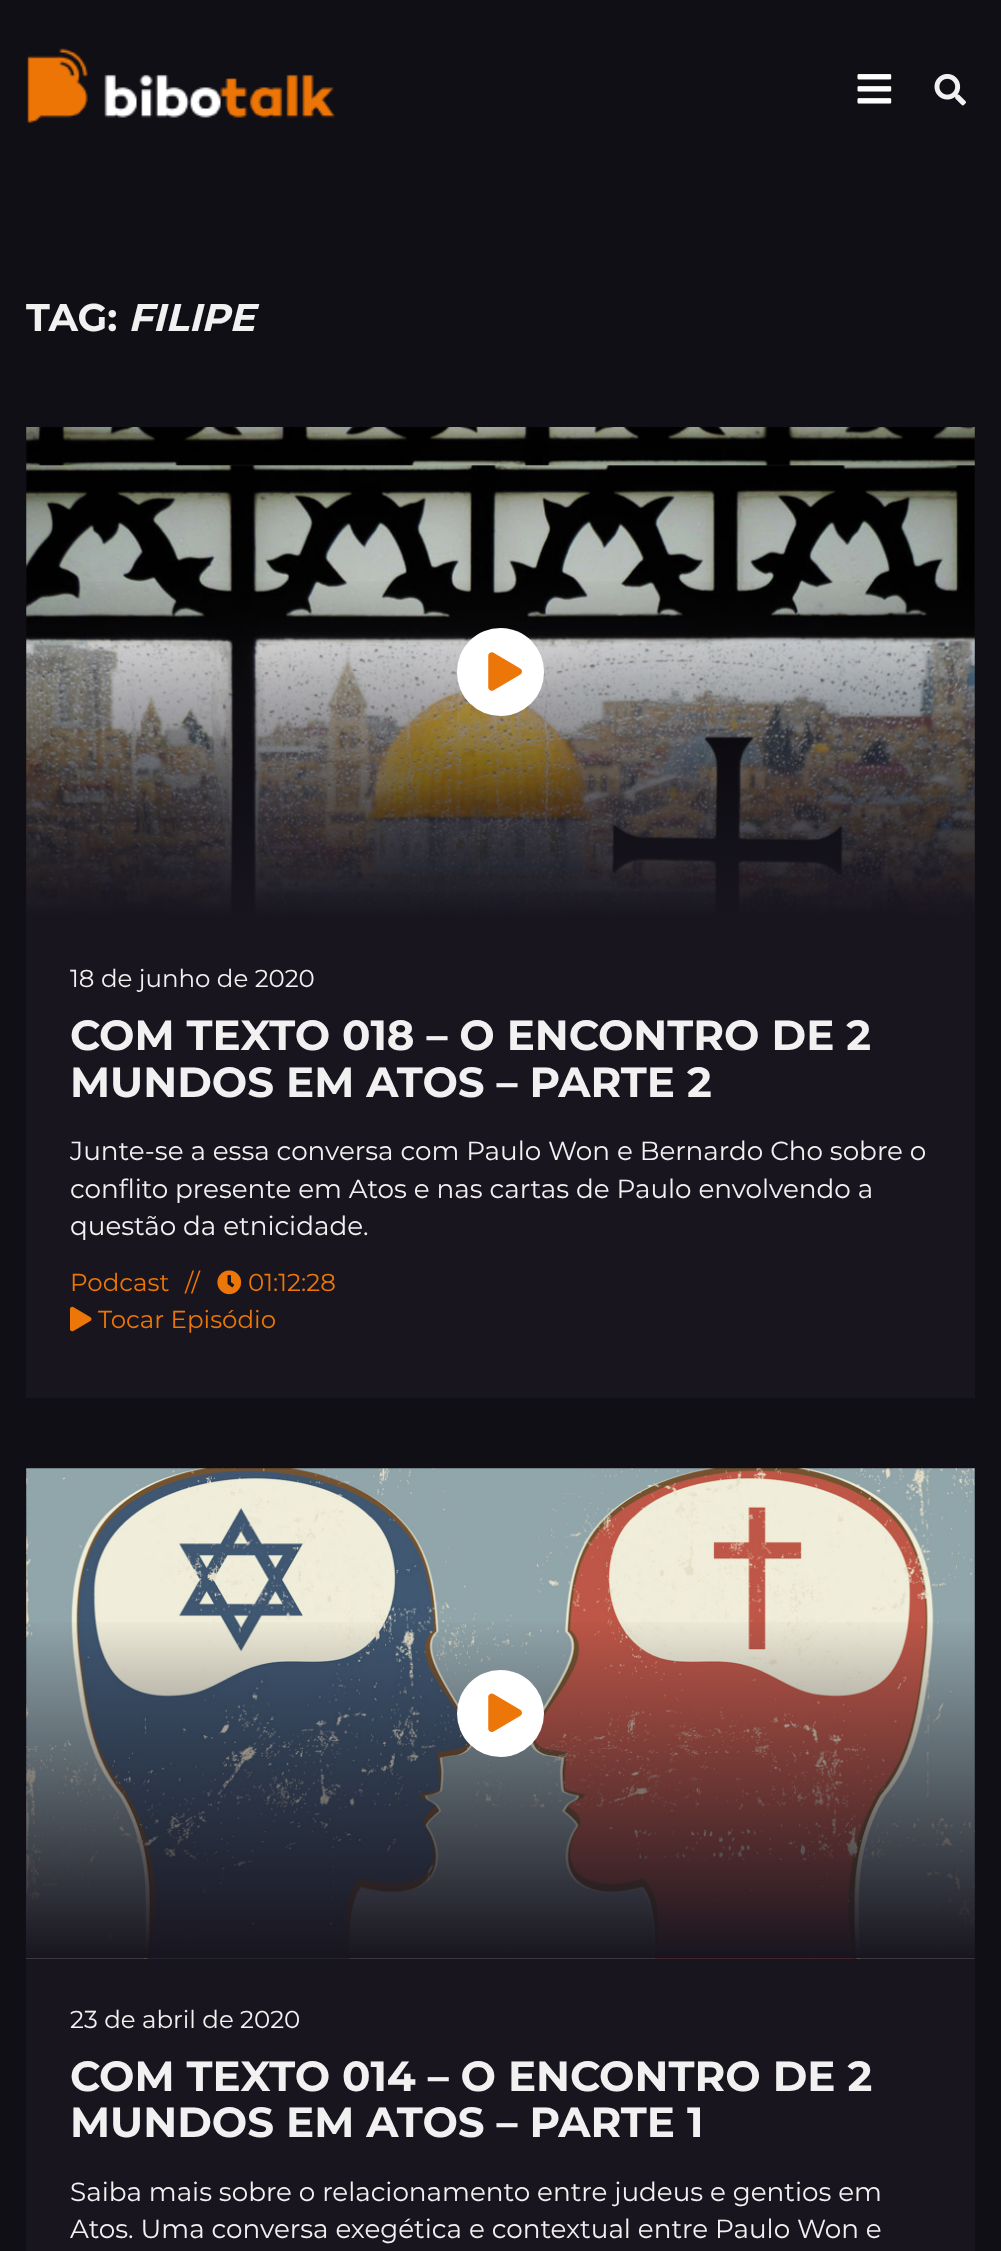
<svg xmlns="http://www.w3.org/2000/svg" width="1001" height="2251">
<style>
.a{font:bold 38.5px Montserrat;fill:#f1f1f1}
.b{font:italic bold 38.5px Montserrat;fill:#f1f1f1}
.c{font:24.5px Montserrat;fill:#f1f1f1}
.d{font:bold 42px Montserrat;fill:#f1f1f1}
.e{font:26.25px Montserrat;fill:#f1f1f1}
.f{font:24.5px Montserrat;fill:#ec7608}
</style>
<defs>
<linearGradient id="g1" gradientUnits="userSpaceOnUse" x1="501" y1="574" x2="501" y2="917"><stop offset="0" stop-color="#18151f" stop-opacity="0"/><stop offset="1" stop-color="#18151f"/></linearGradient>
<linearGradient id="g2" gradientUnits="userSpaceOnUse" x1="501" y1="1615" x2="501" y2="1958"><stop offset="0" stop-color="#18151f" stop-opacity="0"/><stop offset="1" stop-color="#18151f"/></linearGradient>
</defs>
<rect width="100%" height="100%" fill="#110f16"/>
<image href="1.png" x="27" y="48" width="308" height="75"/>
<image href="2.png" x="857" y="74" width="35" height="30"/>
<image href="3.png" x="934" y="73" width="32" height="33"/>
<path fill="#18151f" d="M26 427h949v971H26z"/>
<image href="4.png" x="26" y="427" width="949" height="488"/>
<path fill="url(#g1)" d="M26 581h949v334H26z"/>
<rect fill="#fff" x="457" y="628" width="87" height="88" rx="43.5"/>
<image href="5.png" x="488" y="652" width="34" height="39"/>
<image href="6.png" x="217" y="1270" width="25" height="25"/>
<image href="7.png" x="70" y="1306" width="22" height="26"/>
<path fill="#18151f" d="M26 1468h949v783H26z"/>
<image href="8.png" x="26" y="1468" width="949" height="491"/>
<path fill="url(#g2)" d="M26 1622h949v336H26z"/>
<circle fill="#fff" cx="500.5" cy="1713.5" r="43.5"/>
<image href="9.png" x="488" y="1693" width="34" height="40"/>
<text class="a" x="26" y="331">TAG:</text>
<text class="b" x="128" y="331">FILIPE</text>
<text class="c" x="70" y="987">18 de junho de 2020</text>
<text class="d" x="70" y="1050">COM TEXTO 018 – O ENCONTRO DE 2</text>
<text class="d" x="70" y="1097">MUNDOS EM ATOS – PARTE 2</text>
<text class="e" x="70" y="1160">Junte-se a essa conversa com Paulo Won e Bernardo Cho sobre o</text>
<text class="e" x="70" y="1198">conflito presente em Atos e nas cartas de Paulo envolvendo a</text>
<text class="e" x="70" y="1235">questão da etnicidade.</text>
<text class="f" x="70" y="1291">Podcast</text>
<text class="f" x="185" y="1291">//</text>
<text class="f" x="248" y="1291">01:12:28</text>
<text class="f" x="98" y="1328">Tocar Episódio</text>
<text class="c" x="70" y="2028">23 de abril de 2020</text>
<text class="d" x="70" y="2091">COM TEXTO 014 – O ENCONTRO DE 2</text>
<text class="d" x="70" y="2137">MUNDOS EM ATOS – PARTE 1</text>
<text class="e" x="70" y="2201">Saiba mais sobre o relacionamento entre judeus e gentios em</text>
<text class="e" x="70" y="2238">Atos. Uma conversa exegética e contextual entre Paulo Won e</text>
</svg>
